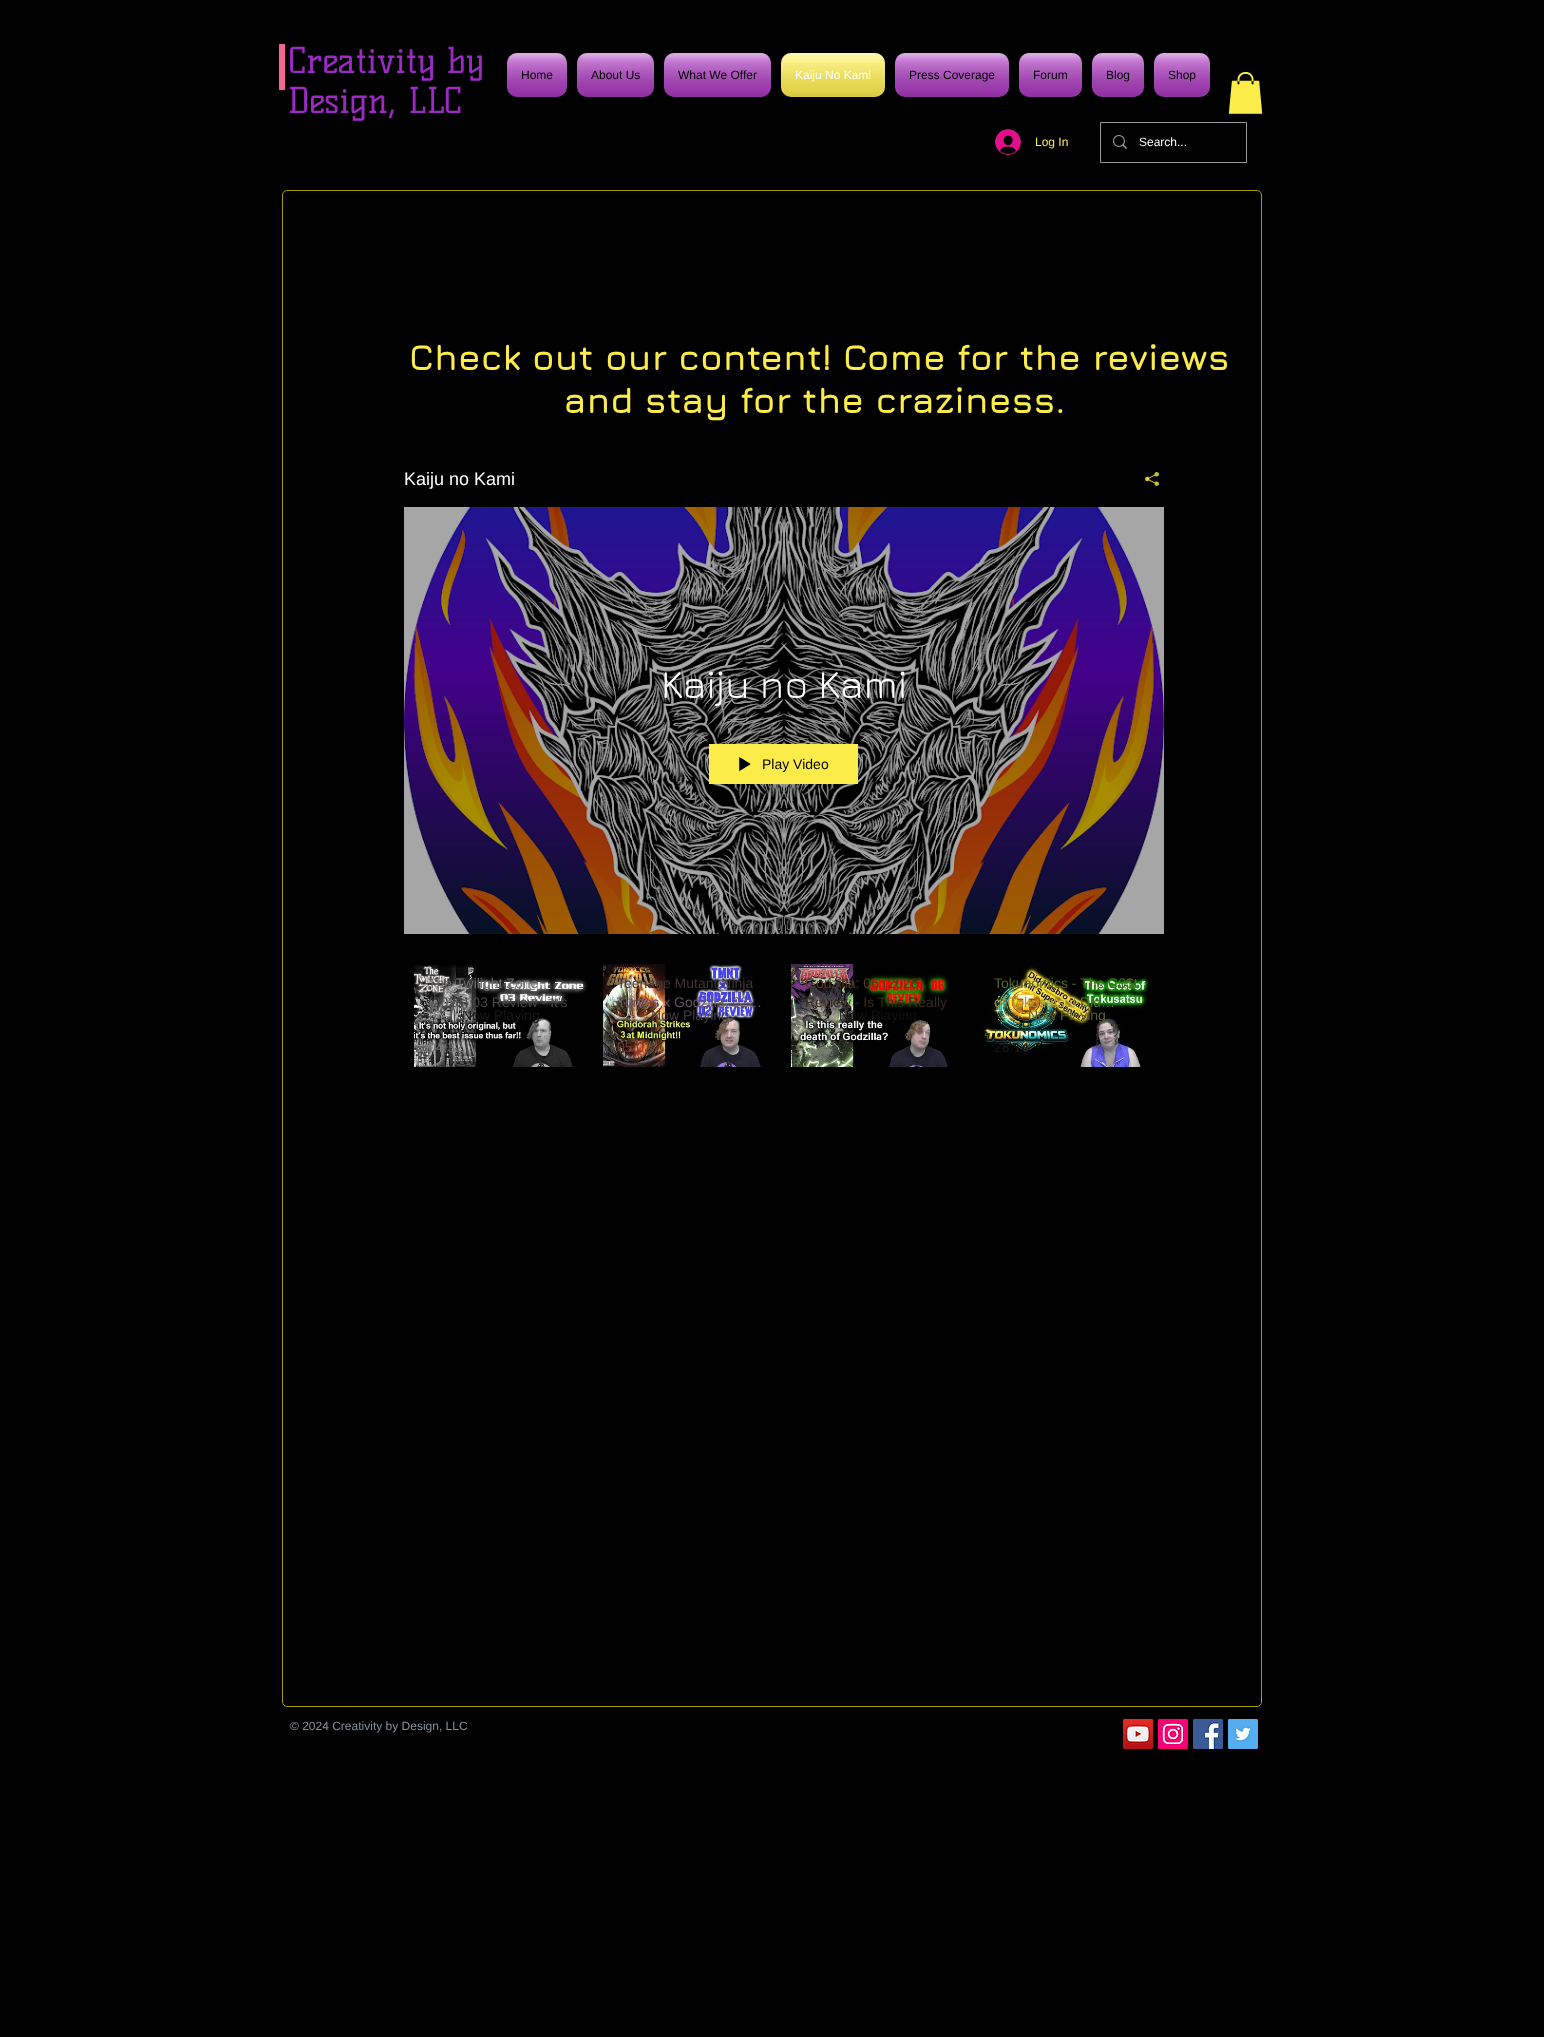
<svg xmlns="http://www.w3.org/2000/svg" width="1544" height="2037">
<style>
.a{font:35px Kelly Slab;fill:#9d2ac7}
.b{font:12px Liberation Sans;fill:#000}
.c{font:12px Liberation Sans;fill:#fff}
.d{font:12px Liberation Sans;fill:#fbec49}
.e{font:bold 36px Jura;fill:#fbec49}
.f{font:18px Liberation Sans;fill:#fff}
.g{font:40px Jura;fill:#fff}
.h{font:14px Liberation Sans;fill:#000}
.i{font:14px Liberation Sans;fill:#6e6e6d}
.j{font:14px Liberation Sans;fill:#474747}
.k{font:14px Liberation Sans;fill:#181818}
.l{font:14px Liberation Sans;fill:#3f3532}
.m{font:14px Liberation Sans;fill:#655568}
.n{font:14px Liberation Sans;fill:#453c45}
.o{font:14px Liberation Sans;fill:#6e3c2b}
.p{font:14px Liberation Sans;fill:#5d361b}
.q{font:14px Liberation Sans;fill:#392c20}
.r{font:14px Liberation Sans;fill:#10110f}
.s{font:14px Liberation Sans;fill:#51672a}
.t{font:14px Liberation Sans;fill:#a4923a}
.u{font:14px Liberation Sans;fill:#4e712e}
.v{font:14px Liberation Sans;fill:#5c5d2d}
.w{font:12px Liberation Sans;fill:#8394a0}
</style>
<rect width="100%" height="100%" fill="#000"/>
<path fill="#f2668f" d="M279 44h6v46H279z"/>
<rect fill="#a634ba" x="507" y="53" width="60" height="44" rx="10"/>
<image href="1.png" x="507" y="53" width="60" height="44"/>
<image href="2.png" x="507" y="63" width="60" height="34"/>
<rect fill="#a634ba" x="577" y="53" width="77" height="44" rx="10"/>
<image href="3.png" x="577" y="53" width="77" height="44"/>
<image href="4.png" x="577" y="63" width="77" height="34"/>
<rect fill="#a634ba" x="664" y="53" width="107" height="44" rx="10"/>
<image href="5.png" x="664" y="53" width="107" height="44"/>
<image href="6.png" x="664" y="63" width="107" height="34"/>
<rect fill="#fbec49" x="781" y="53" width="104" height="44" rx="10"/>
<image href="7.png" x="781" y="53" width="104" height="44"/>
<image href="8.png" x="781" y="63" width="104" height="34"/>
<rect fill="#a634ba" x="895" y="53" width="114" height="44" rx="10"/>
<image href="9.png" x="895" y="53" width="114" height="44"/>
<image href="10.png" x="895" y="63" width="114" height="34"/>
<rect fill="#a634ba" x="1019" y="53" width="63" height="44" rx="10"/>
<image href="11.png" x="1019" y="53" width="63" height="44"/>
<image href="12.png" x="1019" y="63" width="63" height="34"/>
<rect fill="#a634ba" x="1092" y="53" width="52" height="44" rx="10"/>
<image href="13.png" x="1092" y="53" width="52" height="44"/>
<image href="14.png" x="1092" y="63" width="52" height="34"/>
<rect fill="#a634ba" x="1154" y="53" width="56" height="44" rx="10"/>
<image href="15.png" x="1154" y="53" width="56" height="44"/>
<image href="16.png" x="1154" y="63" width="56" height="34"/>
<image href="17.png" x="1228" y="72" width="35" height="42"/>
<image href="18.png" x="995" y="129" width="26" height="26"/>
<path fill="none" stroke="#999" d="M1100.5 122.5h146v40H1100.5z"/>
<image href="19.png" x="1113" y="135" width="14" height="14"/>
<rect fill="none" stroke="#a99b00" x="282.5" y="190.5" width="979" height="1516" rx="4.5"/>
<image href="20.png" x="1145" y="472" width="14" height="14"/>
<image href="21.png" x="404" y="507" width="760" height="427"/>
<path fill="#fbec49" d="M709 744h149v40H709z"/>
<image href="22.png" x="739" y="757" width="12" height="14"/>
<image href="23.png" x="414" y="964" width="175" height="1"/>
<image href="24.png" x="414" y="965" width="175" height="102"/>
<image href="25.png" x="761" y="964" width="1" height="103"/>
<image href="26.png" x="603" y="964" width="158" height="103"/>
<image href="27.png" x="791" y="964" width="161" height="103"/>
<image href="28.png" x="982" y="964" width="168" height="103"/>
<image href="29.png" x="985" y="968" width="164" height="99"/>
<image href="30.png" x="1123" y="1719" width="30" height="30"/>
<image href="31.png" x="1158" y="1719" width="30" height="30"/>
<image href="32.png" x="1193" y="1719" width="30" height="30"/>
<image href="33.png" x="1228" y="1719" width="30" height="30"/>
<text class="a" x="288" y="73">Creativity by</text>
<text class="a" x="288" y="113">Design, LLC</text>
<text class="b" x="521" y="79">Home</text>
<text class="b" x="591" y="79">About Us</text>
<text class="b" x="678" y="79">What We Offer</text>
<text class="c" x="795" y="79">Kaiju No Kami</text>
<text class="b" x="909" y="79">Press Coverage</text>
<text class="b" x="1033" y="79">Forum</text>
<text class="b" x="1106" y="79">Blog</text>
<text class="b" x="1168" y="79">Shop</text>
<text class="d" x="1035" y="146">Log In</text>
<text class="c" x="1139" y="146">Search...</text>
<text class="e" x="409" y="370">Check out our content! Come for the reviews</text>
<text class="e" x="563" y="413">and stay for the craziness.</text>
<text class="f" x="404" y="485">Kaiju no Kami</text>
<text class="g" x="661" y="698">Kaiju no Kami</text>
<text class="h" x="762" y="769">Play Video</text>
<text class="i" x="428" y="988">The Twilight Zone</text>
<text class="j" x="428" y="1007">(2026) 03 Review - It's</text>
<text class="k" x="462" y="1020">Now Playing</text>
<text class="i" x="428" y="1052">04:32</text>
<text class="l" x="617" y="988">Teenage Mutant Ninja</text>
<text class="m" x="617" y="1007">Turtles x Godzilla: 02…</text>
<text class="n" x="651" y="1020">Now Playing</text>
<text class="o" x="617" y="1052">05:03</text>
<text class="p" x="805" y="988">Godzilla: 06 (2026)</text>
<text class="q" x="805" y="1007">Review - Is This Really</text>
<text class="r" x="839" y="1020">Now Playing</text>
<text class="s" x="994" y="988">Tokunomics - The C0$t</text>
<text class="t" x="994" y="1007">of Tokusatsu!</text>
<text class="u" x="1080" y="1007">Did…</text>
<text class="v" x="1028" y="1020">Now Playing</text>
<text class="k" x="994" y="1052">28:14</text>
<text class="w" x="290" y="1730">© 2024 Creativity by Design, LLC</text>
</svg>
